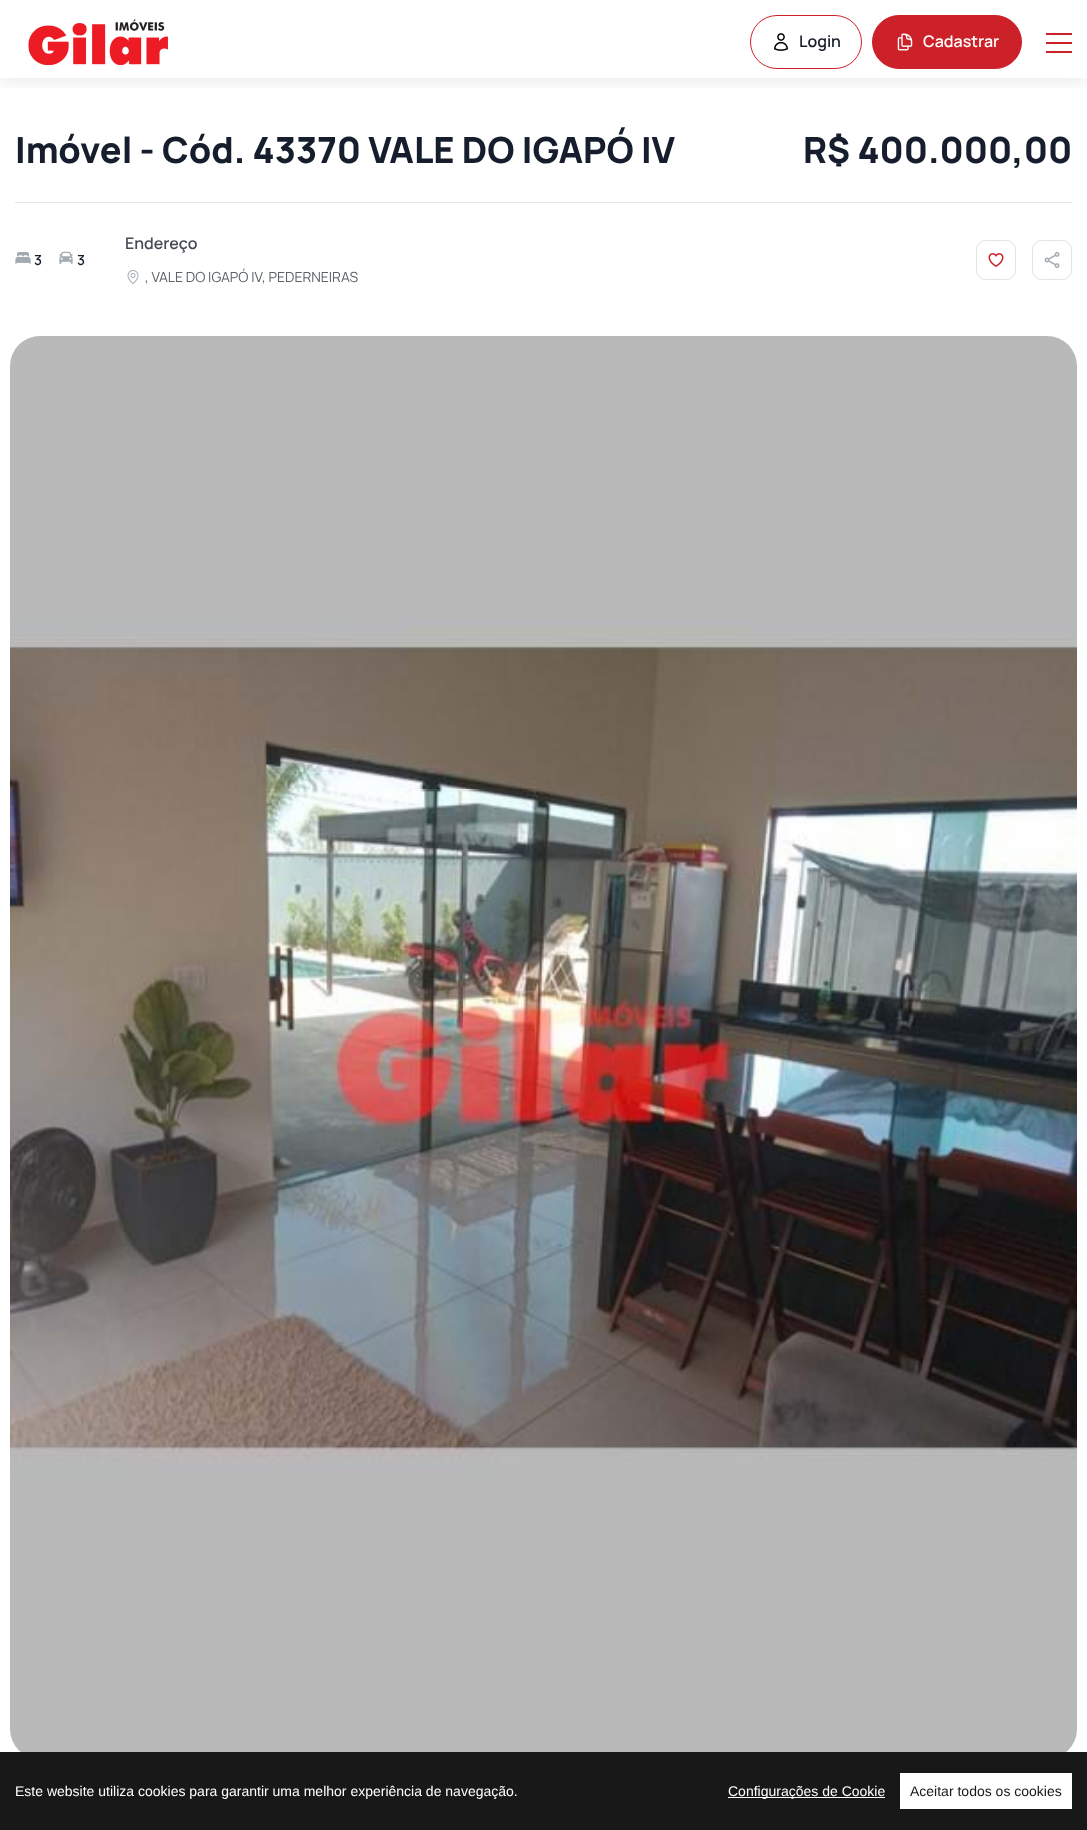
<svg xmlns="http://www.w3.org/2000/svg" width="1087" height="1830">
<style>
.a{font:600 16px Manrope;fill:#161e2d}
.b{font:600 16px Manrope;fill:#fff}
.c{font:800 36px Manrope;fill:#161e2d}
.d{font:600 14px Manrope;fill:#161e2d}
.e{font:600 16px Manrope;fill:#454b57}
.f{font:14px Manrope;fill:#5c6368}
.g{font:14px Liberation Sans;fill:#fff}
.h{font:14px Liberation Sans;fill:#181818}
</style>
<defs>
<clipPath id="clip1"><path d="M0 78h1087v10H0z"/></clipPath>
</defs>
<rect width="100%" height="100%" fill="#fff"/>
<g clip-path="url(#clip1)">
<path fill="#00000014" filter="blur(9px)" d="M0 4h1087v78H0z"/>
</g>
<image href="1.png" x="28" y="19" width="140" height="46"/>
<rect fill="none" stroke="#cc2128" x="750.5" y="15.5" width="111" height="53" rx="26.5"/>
<image href="2.png" x="774" y="33" width="14" height="18"/>
<rect fill="#cc2128" stroke="#cc2128" x="872.5" y="15.5" width="149" height="53" rx="26.5"/>
<image href="3.png" x="897" y="33" width="16" height="18"/>
<path fill="#cc2128" d="M1046 33h26v2H1046z"/>
<path fill="#cc2128" d="M1046 42h26v2H1046z"/>
<path fill="#cc2128" d="M1046 51h26v2H1046z"/>
<path fill="#e4e4e4" d="M15 202h1057v1H15z"/>
<image href="4.png" x="15" y="252" width="16" height="12"/>
<image href="5.png" x="59" y="251" width="14" height="13"/>
<image href="6.png" x="127" y="270" width="12" height="14"/>
<rect fill="none" stroke="#e4e4e4" x="976.5" y="240.5" width="39" height="39" rx="9.5"/>
<image href="7.png" x="988" y="253" width="16" height="14"/>
<rect fill="none" stroke="#e4e4e4" x="1032.5" y="240.5" width="39" height="39" rx="9.5"/>
<image href="8.png" x="1044" y="252" width="16" height="16"/>
<image href="9.png" x="10" y="336" width="1067" height="1416"/>
<path fill="#181818" d="M0 1752h1087v78H0z"/>
<path fill="#fff" d="M728 1797h157v1H728z"/>
<path fill="#fff" d="M900 1773h172v36H900z"/>
<text class="a" x="799" y="47">Login</text>
<text class="b" x="923" y="47">Cadastrar</text>
<text class="c" x="15" y="163">Imóvel - Cód. 43370 VALE DO IGAPÓ IV</text>
<text class="c" x="803" y="163">R$ 400.000,00</text>
<text class="d" x="34" y="265">3</text>
<text class="d" x="77" y="265">3</text>
<text class="e" x="125" y="249">Endereço</text>
<text class="f" x="145" y="282">, VALE DO IGAPÓ IV, PEDERNEIRAS</text>
<text class="g" x="15" y="1796">Este website utiliza cookies para garantir uma melhor experiência de navegação.</text>
<text class="g" x="728" y="1796">Configurações de Cookie</text>
<text class="h" x="910" y="1796">Aceitar todos os cookies</text>
</svg>
